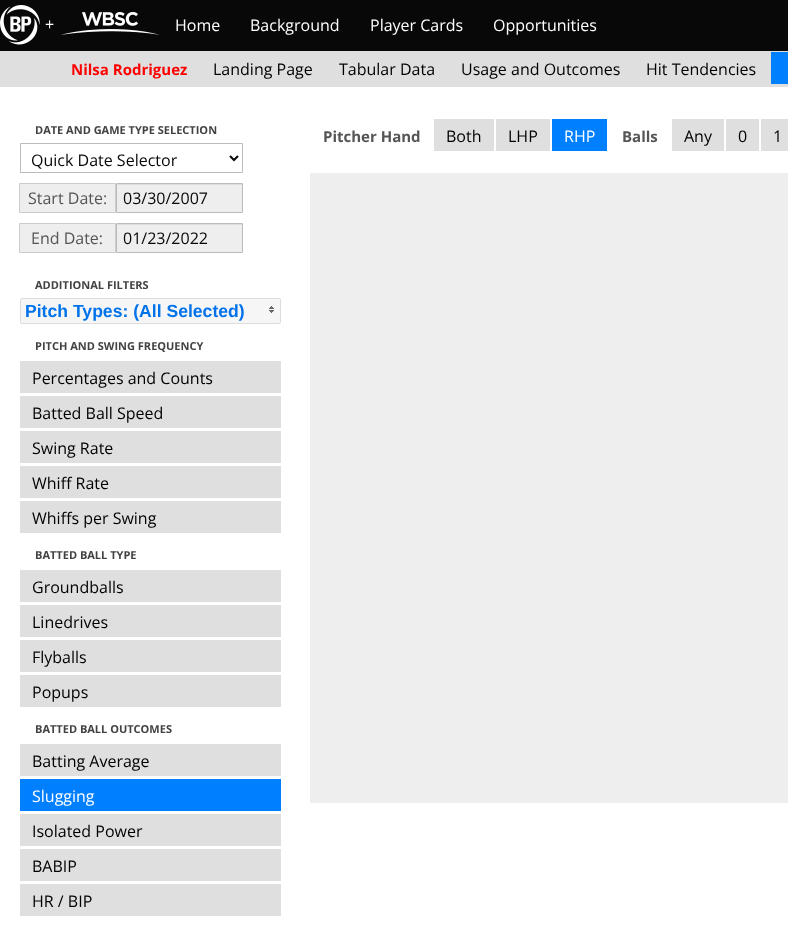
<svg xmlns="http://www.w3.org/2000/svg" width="788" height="951">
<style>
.a{font:16px Open Sans;fill:#fff}
.b{font:bold 15px Open Sans;fill:#f00}
.c{font:16px Open Sans;fill:#000}
.d{font:bold 11px Open Sans;fill:#424242}
.e{font:16px Open Sans;fill:#080808}
.f{font:16px Open Sans;fill:#555}
.g{font:bold 17.6px Liberation Sans;fill:#0073ea}
.h{font:bold 15px Open Sans;fill:#555}
</style>
<rect width="100%" height="100%" fill="#fff"/>
<path fill="#080808" d="M0 0h788v51H0z"/>
<image href="1.png" x="0" y="5" width="40" height="40"/>
<image href="2.png" x="60" y="12" width="100" height="23"/>
<path fill="#dfdfdf" d="M0 51h788v36H0z"/>
<path fill="#007fff" d="M771 52h17v32H771z"/>
<path fill="none" stroke="#bbb" d="M20.5 143.5h222v29H20.5z"/>
<path fill="none" stroke="#080808" stroke-width="2" d="M230 156l4 4l4-4"/>
<path fill="#eee" stroke="#ccc" d="M19.5 183.5h96v29H19.5z"/>
<path fill="#eee" d="M117 185h125v27H117z"/>
<path fill="#dcdcdc" d="M117 184h125v1H117z"/>
<path fill="none" stroke="#bbb" d="M116.5 183.5h126v29H116.5z"/>
<path fill="#eee" stroke="#ccc" d="M19.5 223.5h96v29H19.5z"/>
<path fill="#eee" d="M117 225h125v27H117z"/>
<path fill="#dcdcdc" d="M117 224h125v1H117z"/>
<path fill="none" stroke="#bbb" d="M116.5 223.5h126v29H116.5z"/>
<rect fill="#f6f6f6" stroke="#ddd" x="20.5" y="298.5" width="260" height="25" rx="1.5"/>
<image href="3.png" x="269" y="306" width="5" height="7"/>
<path fill="#dfdfdf" d="M20 361h261v32H20z"/>
<path fill="#dfdfdf" d="M20 396h261v32H20z"/>
<path fill="#dfdfdf" d="M20 431h261v32H20z"/>
<path fill="#dfdfdf" d="M20 466h261v32H20z"/>
<path fill="#dfdfdf" d="M20 501h261v32H20z"/>
<path fill="#dfdfdf" d="M20 570h261v32H20z"/>
<path fill="#dfdfdf" d="M20 605h261v32H20z"/>
<path fill="#dfdfdf" d="M20 640h261v32H20z"/>
<path fill="#dfdfdf" d="M20 675h261v32H20z"/>
<path fill="#dfdfdf" d="M20 744h261v32H20z"/>
<path fill="#007fff" d="M20 779h261v32H20z"/>
<path fill="#dfdfdf" d="M20 814h261v32H20z"/>
<path fill="#dfdfdf" d="M20 849h261v32H20z"/>
<path fill="#dfdfdf" d="M20 884h261v32H20z"/>
<path fill="#dfdfdf" d="M434 119h60v32H434z"/>
<path fill="#dfdfdf" d="M496 119h54v32H496z"/>
<path fill="#007fff" d="M552 119h55v32H552z"/>
<path fill="#dfdfdf" d="M672 119h52v32H672z"/>
<path fill="#dfdfdf" d="M726 119h33v32H726z"/>
<path fill="#dfdfdf" d="M761 119h27v32H761z"/>
<path fill="#eee" d="M310 173h478v630H310z"/>
<text class="a" x="45" y="30">+</text>
<text class="a" x="175" y="31">Home</text>
<text class="a" x="250" y="31">Background</text>
<text class="a" x="370" y="31">Player Cards</text>
<text class="a" x="493" y="31">Opportunities</text>
<text class="b" x="71" y="75">Nilsa Rodriguez</text>
<text class="c" x="213" y="75">Landing Page</text>
<text class="c" x="339" y="75">Tabular Data</text>
<text class="c" x="461" y="75">Usage and Outcomes</text>
<text class="c" x="646" y="75">Hit Tendencies</text>
<text class="d" x="35" y="134">DATE AND GAME TYPE SELECTION</text>
<text class="e" x="31" y="166">Quick Date Selector</text>
<text class="f" x="28" y="204">Start Date:</text>
<text class="e" x="123" y="204">03/30/2007</text>
<text class="f" x="31" y="244">End Date:</text>
<text class="e" x="123" y="244">01/23/2022</text>
<text class="d" x="35" y="289">ADDITIONAL FILTERS</text>
<text class="g" x="25" y="317">Pitch Types: (All Selected)</text>
<text class="d" x="35" y="350">PITCH AND SWING FREQUENCY</text>
<text class="c" x="32" y="384">Percentages and Counts</text>
<text class="c" x="32" y="419">Batted Ball Speed</text>
<text class="c" x="32" y="454">Swing Rate</text>
<text class="c" x="32" y="489">Whiff Rate</text>
<text class="c" x="32" y="524">Whiffs per Swing</text>
<text class="d" x="35" y="559">BATTED BALL TYPE</text>
<text class="c" x="32" y="593">Groundballs</text>
<text class="c" x="32" y="628">Linedrives</text>
<text class="c" x="32" y="663">Flyballs</text>
<text class="c" x="32" y="698">Popups</text>
<text class="d" x="35" y="733">BATTED BALL OUTCOMES</text>
<text class="c" x="32" y="767">Batting Average</text>
<text class="a" x="32" y="802">Slugging</text>
<text class="c" x="32" y="837">Isolated Power</text>
<text class="c" x="32" y="872">BABIP</text>
<text class="c" x="32" y="907">HR / BIP</text>
<text class="h" x="323" y="142">Pitcher Hand</text>
<text class="c" x="446" y="142">Both</text>
<text class="c" x="508" y="142">LHP</text>
<text class="a" x="564" y="142">RHP</text>
<text class="h" x="622" y="142">Balls</text>
<text class="c" x="684" y="142">Any</text>
<text class="c" x="738" y="142">0</text>
<text class="c" x="773" y="142">1</text>
</svg>
